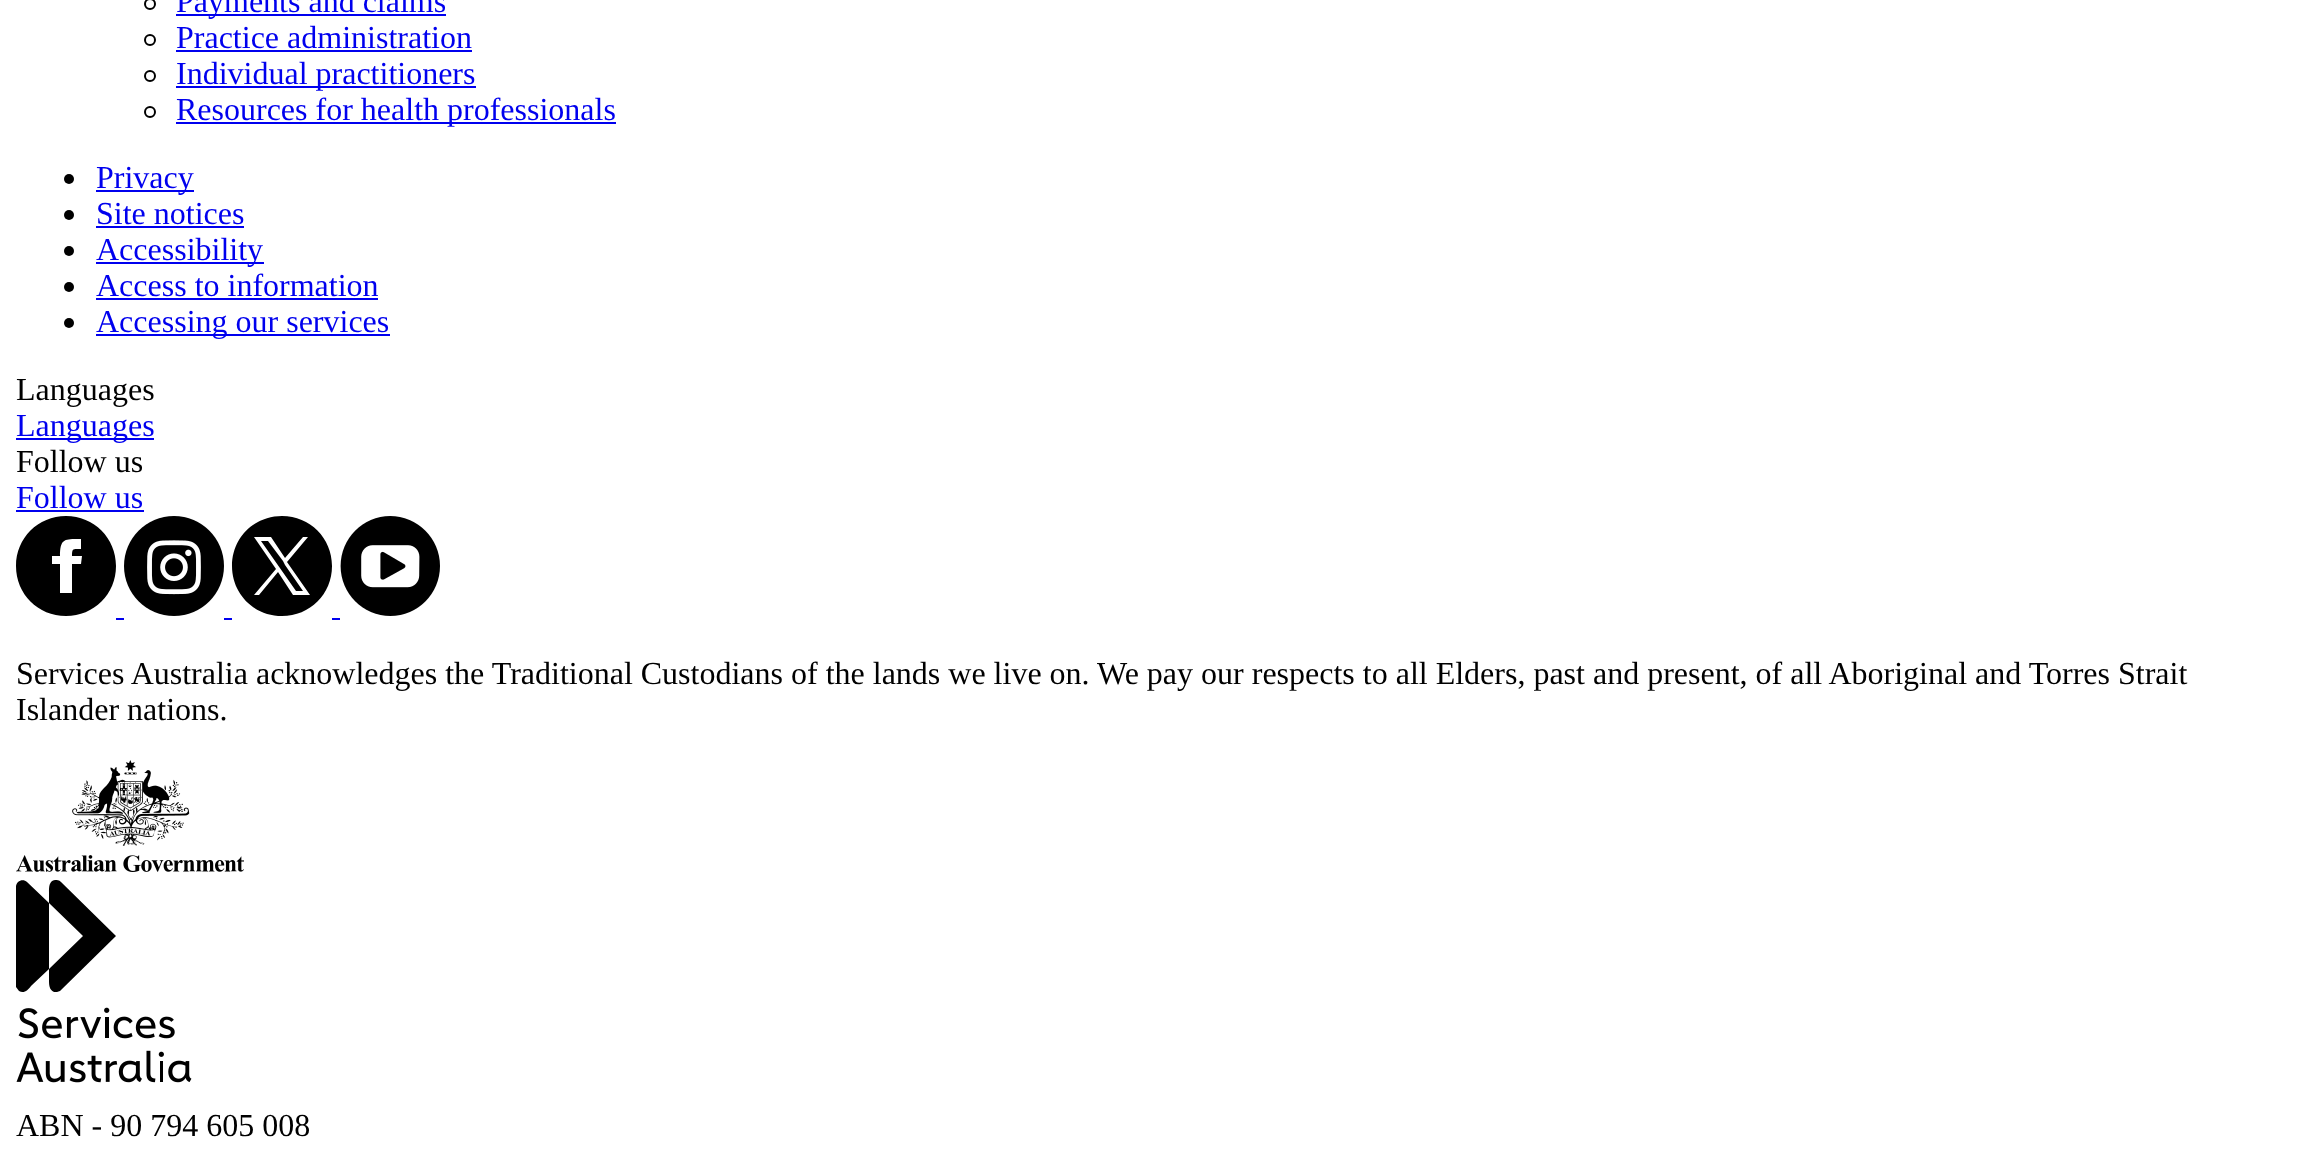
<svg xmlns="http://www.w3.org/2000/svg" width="2309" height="1159">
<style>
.a{font:32px Liberation Serif;fill:#00e}
.b{font:32px Liberation Serif;fill:#000}
</style>
<rect width="100%" height="100%" fill="#fff"/>
<circle fill="none" stroke="#000" stroke-width="2" cx="150" cy="4" r="5"/>
<path fill="#00e" d="M176 14h270v2H176z"/>
<circle fill="none" stroke="#000" stroke-width="2" cx="150" cy="40" r="5"/>
<path fill="#00e" d="M176 50h296v2H176z"/>
<circle fill="none" stroke="#000" stroke-width="2" cx="150" cy="76" r="5"/>
<path fill="#00e" d="M176 86h300v2H176z"/>
<circle fill="none" stroke="#000" stroke-width="2" cx="150" cy="112" r="5"/>
<path fill="#00e" d="M176 122h440v2H176z"/>
<circle fill="#000" cx="69" cy="179" r="5"/>
<path fill="#00e" d="M96 190h98v2H96z"/>
<circle fill="#000" cx="69" cy="215" r="5"/>
<path fill="#00e" d="M96 226h148v2H96z"/>
<circle fill="#000" cx="69" cy="251" r="5"/>
<path fill="#00e" d="M96 262h168v2H96z"/>
<circle fill="#000" cx="69" cy="287" r="5"/>
<path fill="#00e" d="M96 298h282v2H96z"/>
<circle fill="#000" cx="69" cy="323" r="5"/>
<path fill="#00e" d="M96 334h294v2H96z"/>
<path fill="#00e" d="M16 438h138v2H16z"/>
<path fill="#00e" d="M16 510h128v2H16z"/>
<path fill="#000" d="M66 516c-28 0-50 22-50 50c0 28 22 50 50 50c28 0 50-22 50-50c0-28-22-50-50-50zm15 48h-9v29h-12v-29h-8v-8h8c0-18 5-17 21-17v10c-8 0-9-1-9 7h10z"/>
<image href="1.png" x="124" y="516" width="100" height="100"/>
<path fill="#000" d="M285 565l18 26h-7l-35-50h7l15 20z"/>
<path fill="#000" d="M282 516c-28 0-50 22-50 50c0 28 22 50 50 50c28 0 50-22 50-50c0-28-22-50-50-50zm11 79l-15-23l-19 23h-5l22-26l-22-32h17l14 21l18-21h5l-21 25l23 33z"/>
<image href="2.png" x="340" y="516" width="100" height="100"/>
<path fill="#00e" d="M116 618h8v2H116z"/>
<path fill="#00e" d="M224 618h8v2H224z"/>
<path fill="#00e" d="M332 618h8v2H332z"/>
<image href="3.png" x="16" y="760" width="228" height="112"/>
<path fill="#000" d="M49 903v66l-18 17c-3 4-7 8-12 5c-1-1-2-3-3-4v-100c0-6 7-9 11-5zm12-21c-2-2-4-2-6-2c-6 1-6 7-6 12v11l34 33l-34 33v11c0 4 0 10 5 12c2 0 4 0 6-1l56-55z"/>
<image href="4.png" x="16" y="1007" width="176" height="76"/>
<text class="a" x="176" y="12">Payments and claims</text>
<text class="a" x="176" y="48">Practice administration</text>
<text class="a" x="176" y="84">Individual practitioners</text>
<text class="a" x="176" y="120">Resources for health professionals</text>
<text class="a" x="96" y="188">Privacy</text>
<text class="a" x="96" y="224">Site notices</text>
<text class="a" x="96" y="260">Accessibility</text>
<text class="a" x="96" y="296">Access to information</text>
<text class="a" x="96" y="332">Accessing our services</text>
<text class="b" x="16" y="400">Languages</text>
<text class="a" x="16" y="436">Languages</text>
<text class="b" x="16" y="472">Follow us</text>
<text class="a" x="16" y="508">Follow us</text>
<text class="b" x="16" y="684">Services Australia acknowledges the Traditional Custodians of the lands we live on. We pay our respects to all Elders, past and present, of all Aboriginal and Torres Strait</text>
<text class="b" x="16" y="720">Islander nations.</text>
<text class="b" x="16" y="1136">ABN - 90‍ ‍794‍ ‍605‍ ‍008</text>
</svg>
